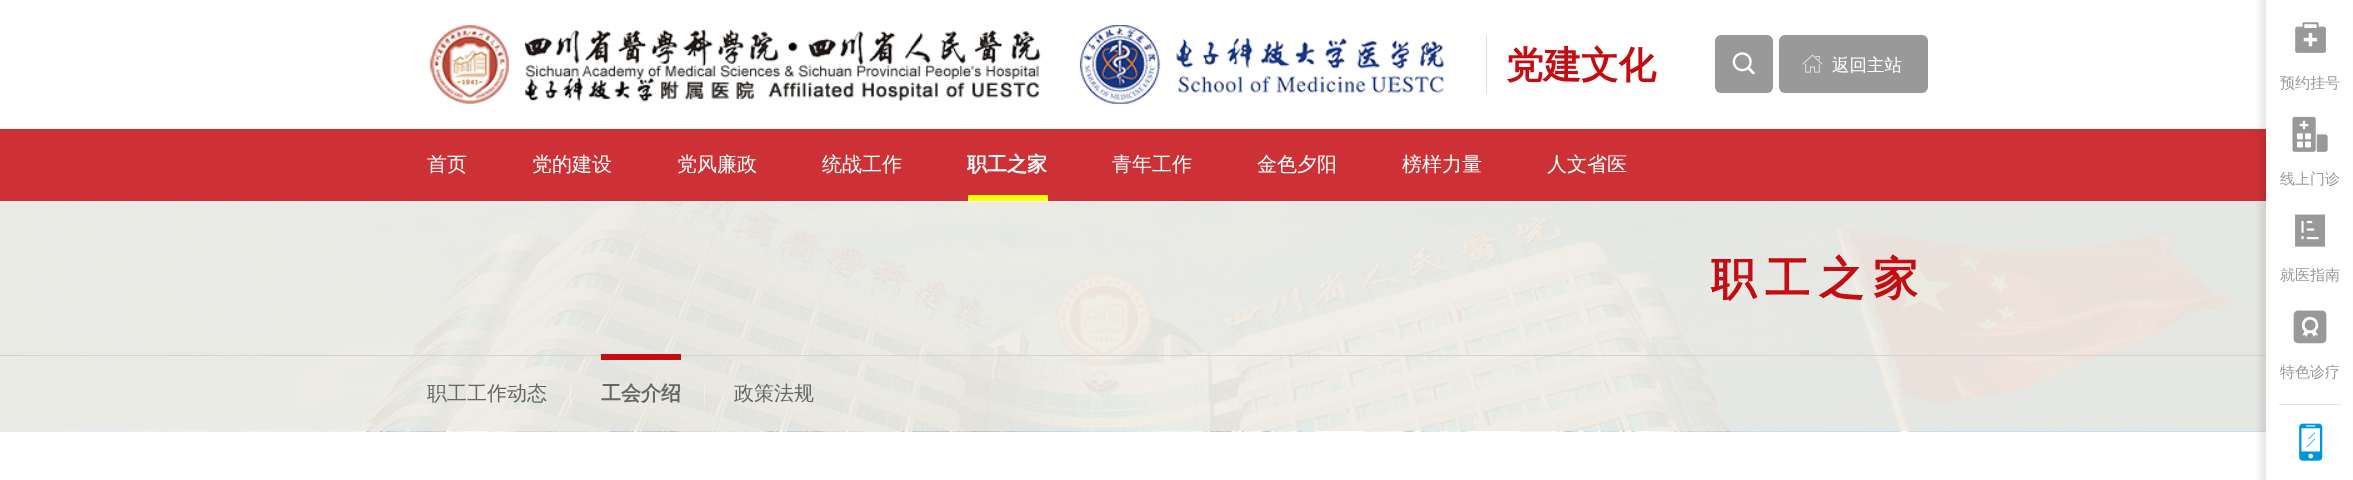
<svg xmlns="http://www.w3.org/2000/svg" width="2353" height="480">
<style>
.a{font:bold 37.5px WenQuanYi Zen Hei;fill:#c50c11}
.b{font:500 17.5px WenQuanYi Zen Hei;fill:#fff}
.c{font:500 20px WenQuanYi Zen Hei;fill:#fff}
.d{font:bold 20px WenQuanYi Zen Hei;fill:#fff}
.e{font:500 15px WenQuanYi Zen Hei;fill:#999}
.f{font:bold 45px WenQuanYi Zen Hei;letter-spacing:9px;fill:#c50c11}
.g{font:500 20px WenQuanYi Zen Hei;fill:#666}
.h{font:bold 20px WenQuanYi Zen Hei;fill:#666}
</style>
<rect width="100%" height="100%" fill="#fff"/>
<image href="1.png" x="429" y="25" width="1015" height="79"/>
<path fill="#ddd" d="M1486 36h1v58H1486z"/>
<rect fill="#999" x="1715" y="35" width="58" height="58" rx="6"/>
<image href="2.png" x="1732" y="52" width="23" height="23"/>
<rect fill="#999" x="1779" y="35" width="149" height="58" rx="6"/>
<image href="3.png" x="1802" y="54" width="21" height="19"/>
<path fill="#ce3135" d="M0 129h2266v72H0z"/>
<path fill="#ff0" d="M968 195h80v6H968z"/>
<image href="9.png" x="0" y="201" width="2266" height="231"/>
<path fill="#ffffff33" d="M0 201h2266v1H0z"/>
<path fill="#d5d1d1f2" d="M0 355h2266v1H0z"/>
<path fill="#00000017" filter="blur(3px)" d="M2260 -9h88v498H2260z"/>
<path fill="#fff" d="M2266 0h86v480H2266z"/>
<image href="4.png" x="2295" y="22" width="31" height="31"/>
<image href="5.png" x="2292" y="116" width="36" height="36"/>
<image href="6.png" x="2295" y="214" width="30" height="33"/>
<image href="7.png" x="2293" y="310" width="34" height="34"/>
<path fill="#e4e4e4" d="M2279 404h62v1H2279z"/>
<image href="8.png" x="2299" y="423" width="24" height="38"/>
<path fill="#c50c11" d="M601 354h80v6H601z"/>
<path fill="#ffffff66" d="M570 385h1v20H570z"/>
<path fill="#ffffff66" d="M704 385h1v20H704z"/>
<text class="a" x="1506" y="78">党建文化</text>
<text class="b" x="1832" y="71">返回主站</text>
<text class="c" x="427" y="171">首页</text>
<text class="c" x="532" y="171">党的建设</text>
<text class="c" x="677" y="171">党风廉政</text>
<text class="c" x="822" y="171">统战工作</text>
<text class="d" x="967" y="171">职工之家</text>
<text class="c" x="1112" y="171">青年工作</text>
<text class="c" x="1257" y="171">金色夕阳</text>
<text class="c" x="1402" y="171">榜样力量</text>
<text class="c" x="1547" y="171">人文省医</text>
<text class="e" x="2280" y="88">预约挂号</text>
<text class="e" x="2280" y="184">线上门诊</text>
<text class="e" x="2280" y="280">就医指南</text>
<text class="e" x="2280" y="377">特色诊疗</text>
<text class="f" x="1711" y="294">职工之家</text>
<text class="g" x="427" y="400">职工工作动态</text>
<text class="h" x="601" y="400">工会介绍</text>
<text class="g" x="734" y="400">政策法规</text>
</svg>
